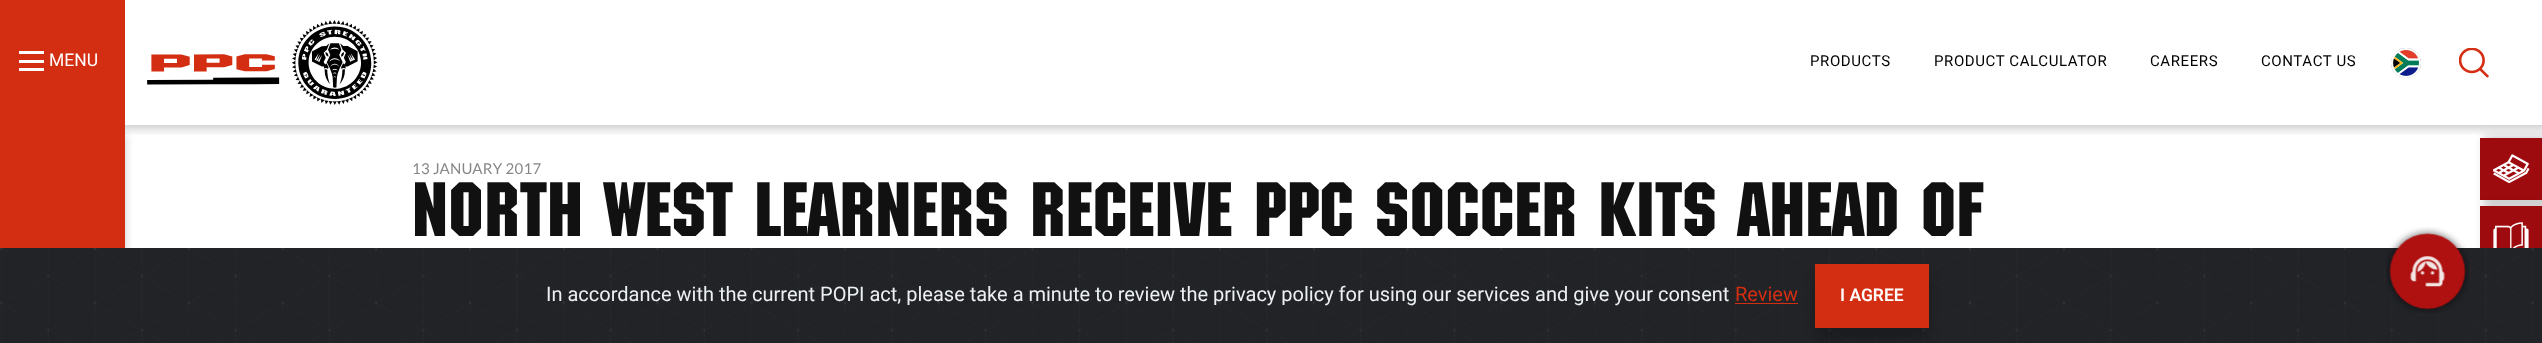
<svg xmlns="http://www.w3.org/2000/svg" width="2542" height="343">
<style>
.a{font:17.5px Roboto;fill:#fffefe}
.b{font:15px Roboto;letter-spacing:0.6px;fill:#010101}
.c{font:15px Lato;letter-spacing:0.25px;fill:#878787}
.d{font:500 75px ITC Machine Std;fill:#111}
.e{font:20px Roboto;fill:#ecf0f1}
.f{font:20px Roboto;fill:#d42e12}
.g{font:600 17.5px Roboto;fill:#fffefe}
</style>
<defs>
<clipPath id="clip1"><path d="M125 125h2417v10H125z"/></clipPath>
<clipPath id="clip2"><path d="M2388 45h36v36h-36zm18 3c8.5 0 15 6.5 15 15c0 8.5-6.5 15-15 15c-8.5 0-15-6.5-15-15c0-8.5 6.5-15 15-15z" clip-rule="evenodd"/></clipPath>
</defs>
<rect width="100%" height="100%" fill="#fff"/>
<path fill="#00000033" filter="blur(5px)" d="M2484 136h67v68H2484z"/>
<path fill="#9e0b0f" d="M2480 138h62v62H2480z"/>
<g clip-path="url(#clip1)">
<path fill="#00000033" filter="blur(5px)" d="M4 -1h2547v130H4z"/>
</g>
<path fill="#d42e12" d="M0 0h125v125H0z"/>
<path fill="#fffefe" d="M19 51h25v3H19z"/>
<path fill="#fffefe" d="M19 60h25v3H19z"/>
<path fill="#fffefe" d="M19 68h25v3H19z"/>
<path fill="#00000033" filter="blur(5px)" d="M0 134h125v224H0z"/>
<path fill="#d42e12" d="M0 125h125v123H0z"/>
<image href="1.png" x="147" y="20" width="231" height="85"/>
<g clip-path="url(#clip2)">
<rect fill="#888" filter="blur(0.5px)" x="2391" y="48" width="30" height="30" rx="15"/>
</g>
<image href="2.png" x="2393" y="50" width="26" height="26"/>
<image href="3.png" x="2459" y="48" width="30" height="30"/>
<image href="4.png" x="2493" y="154" width="37" height="30"/>
<path fill="#00000033" filter="blur(5px)" d="M2484 205h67v68H2484z"/>
<path fill="#9e0b0f" d="M2480 206h62v42H2480z"/>
<image href="5.png" x="2493" y="222" width="36" height="26"/>
<path fill="#212327" d="M2534 248h8v95H2534z"/>
<image href="6.png" x="0" y="248" width="2534" height="95"/>
<path fill="#d42e12" d="M1735 303h63v1H1735z"/>
<path fill="#00000033" filter="blur(6px)" d="M1815 276h114v64H1815z"/>
<path fill="#d42e12" d="M1815 264h114v64H1815z"/>
<image href="7.png" x="2386" y="227" width="83" height="86"/>
<text class="a" x="49" y="66">MENU</text>
<text class="b" x="1810" y="66">PRODUCTS</text>
<text class="b" x="1934" y="66">PRODUCT CALCULATOR</text>
<text class="b" x="2150" y="66">CAREERS</text>
<text class="b" x="2261" y="66">CONTACT US</text>
<text class="c" x="412" y="174">13 JANUARY 2017</text>
<text class="d" x="412" y="236">NORTH WEST LEARNERS RECEIVE PPC SOCCER KITS AHEAD OF</text>
<text class="e" x="546" y="301">In accordance with the current POPI act, please take a minute to review the privacy policy for using our services and give your consent</text>
<text class="f" x="1735" y="301">Review</text>
<text class="g" x="1840" y="301">I AGREE</text>
</svg>
